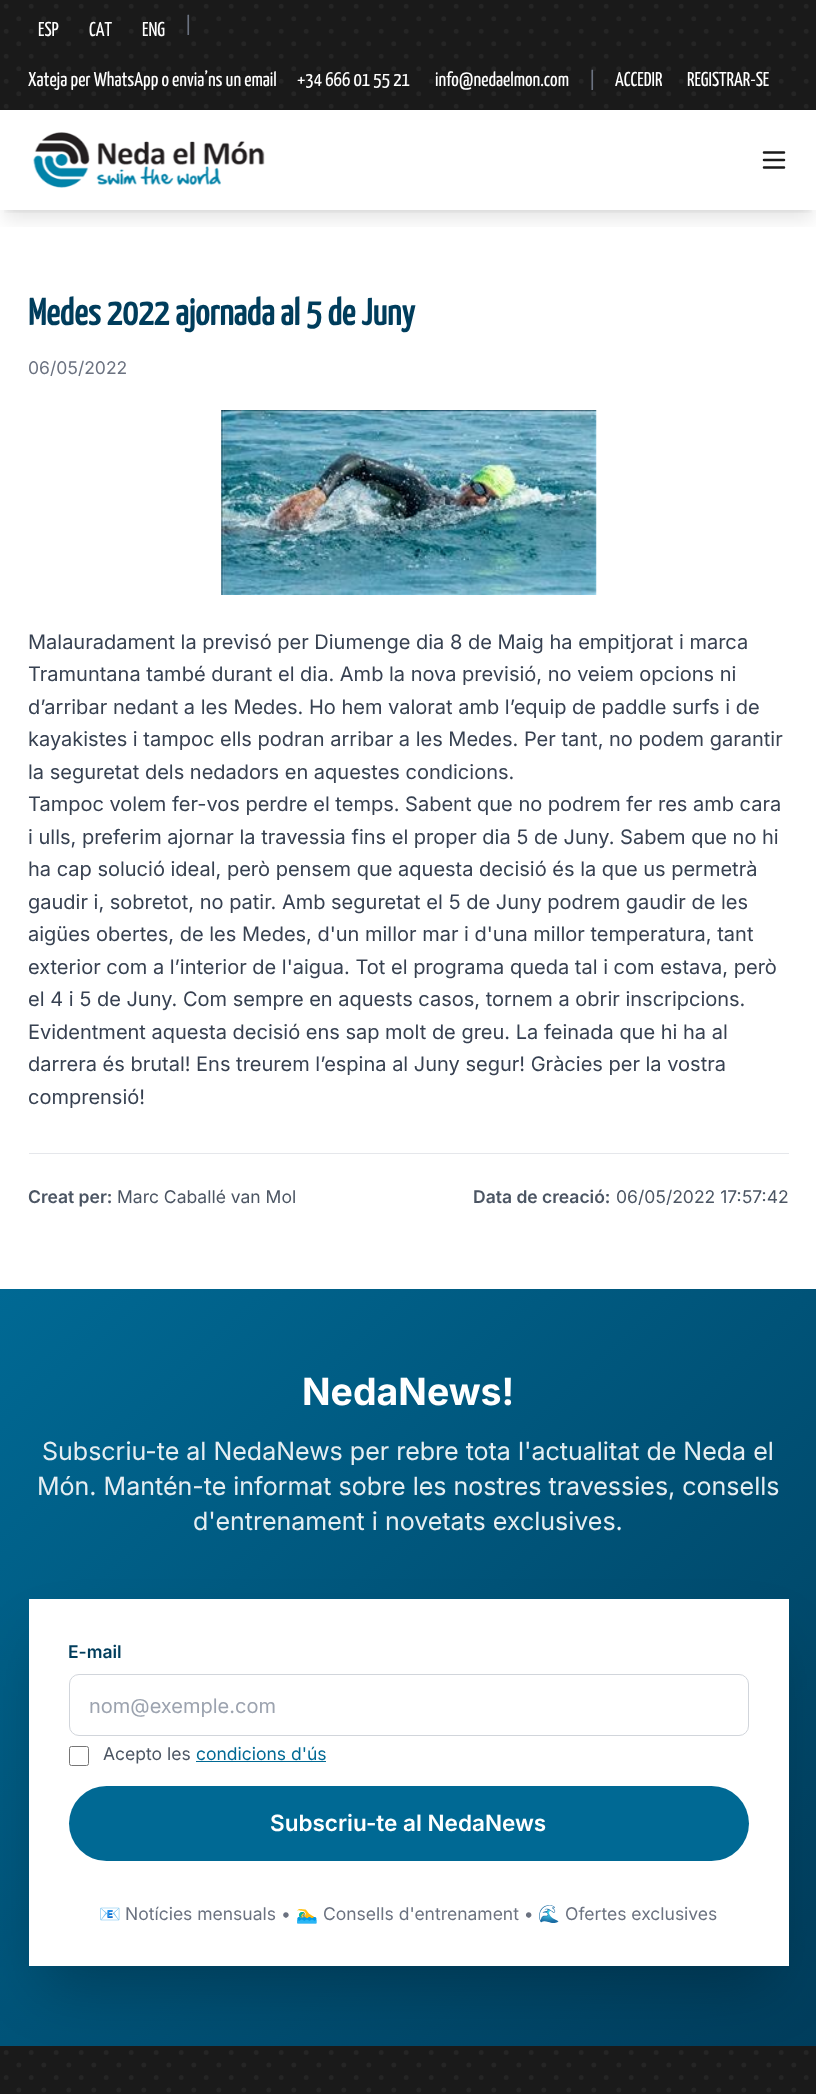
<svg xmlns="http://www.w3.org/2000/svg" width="816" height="2094">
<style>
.a{font:20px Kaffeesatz;fill:#fff}
.b{font:20px Kaffeesatz;fill:#6b7280}
.c{font:bold 37.5px Kaffeesatz;fill:#003d5c}
.d{font:17.5px Inter;fill:#6b7280}
.e{font:20px Inter;fill:#374151}
.f{font:600 17.5px Inter;fill:#4b5563}
.g{font:17.5px Inter;fill:#4b5563}
.h{font:bold 37.5px Inter;fill:#fff}
.i{font:25px Inter;fill:#e6eef2}
.j{font:600 17.5px Inter;fill:#003d5c}
.k{font:20px Inter;fill:#9ca3af}
.l{font:17.5px Inter;fill:#006994}
.m{font:600 22.5px Inter;fill:#fff}
.n{font:17.5px Noto Color Emoji;fill:#6b7280}
</style>
<defs>
<clipPath id="clip1"><path d="M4 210h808v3H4z"/></clipPath>
<clipPath id="clip2"><path d="M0 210h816v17H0z"/></clipPath>
<linearGradient id="g1" gradientUnits="userSpaceOnUse" x1="30" y1="1261" x2="786" y2="2074"><stop offset="0" stop-color="#006994"/><stop offset="1" stop-color="#003d5c"/></linearGradient>
</defs>
<rect width="100%" height="100%" fill="#fff"/>
<path fill="#1a1a1a" d="M0 0h816v110H0z"/>
<path fill="none" stroke="#252525" stroke-width="5" stroke-linecap="round" stroke-dasharray="0 25" d="M18.8 18.8h775.2"/>
<path fill="none" stroke="#252525" stroke-width="5" stroke-linecap="round" stroke-dasharray="0 25" d="M18.8 43.8h775.2"/>
<path fill="none" stroke="#252525" stroke-width="5" stroke-linecap="round" stroke-dasharray="0 25" d="M18.8 68.8h775.2"/>
<path fill="none" stroke="#252525" stroke-width="5" stroke-linecap="round" stroke-dasharray="0 25" d="M18.8 93.8h775.2"/>
<path fill="none" stroke="#252525" stroke-width="5" stroke-linecap="round" stroke-dasharray="0 25" d="M6.2 6.2h800.3"/>
<path fill="none" stroke="#252525" stroke-width="5" stroke-linecap="round" stroke-dasharray="0 25" d="M6.2 31.2h800.3"/>
<path fill="none" stroke="#252525" stroke-width="5" stroke-linecap="round" stroke-dasharray="0 25" d="M6.2 56.2h800.3"/>
<path fill="none" stroke="#252525" stroke-width="5" stroke-linecap="round" stroke-dasharray="0 25" d="M6.2 81.2h800.3"/>
<path fill="none" stroke="#252525" stroke-width="5" stroke-linecap="round" stroke-dasharray="0 25" d="M6.2 106.2h800.3"/>
<g clip-path="url(#clip1)">
<path fill="#0000001a" filter="blur(4px)" d="M5 120h806v90H5z"/>
</g>
<g clip-path="url(#clip2)">
<path fill="#0000001a" filter="blur(9.5px)" d="M4 126h809v93H4z"/>
</g>
<image href="1.png" x="33" y="132" width="232" height="56"/>
<path fill="none" stroke="#1a1a1a" stroke-width="2.5" stroke-linecap="round" stroke-linejoin="round" d="M764 152.5h20m-20 7.5h20m-20 7.5h20"/>
<image href="2.png" x="221" y="410" width="376" height="185"/>
<path fill="#e5e7eb" d="M29 1153h760v1H29z"/>
<path fill="url(#g1)" d="M0 1289h816v757H0z"/>
<path fill="#00000040" filter="blur(31px)" d="M44 1645h730v338H44z"/>
<path fill="#fff" d="M29 1599h760v367H29z"/>
<rect fill="none" stroke="#d1d5db" x="69.5" y="1674.5" width="679" height="61" rx="9.5"/>
<rect fill="none" stroke="#767676" x="69.5" y="1746.5" width="19" height="19" rx="2"/>
<path fill="#006994" d="M196 1761h130v1H196z"/>
<rect fill="#006994" x="69" y="1786" width="680" height="75" rx="37.5"/>
<path fill="#1a1a1a" d="M0 2046h816v48H0z"/>
<path fill="none" stroke="#252525" stroke-width="5" stroke-linecap="round" stroke-dasharray="0 25" d="M18.8 2065h775.2"/>
<path fill="none" stroke="#252525" stroke-width="5" stroke-linecap="round" stroke-dasharray="0 25" d="M18.8 2090h775.2"/>
<path fill="none" stroke="#252525" stroke-width="5" stroke-linecap="round" stroke-dasharray="0 25" d="M6.2 2052.5h800.3"/>
<path fill="none" stroke="#252525" stroke-width="5" stroke-linecap="round" stroke-dasharray="0 25" d="M6.2 2077.5h800.3"/>
<text class="a" x="38" y="36">ESP</text>
<text class="a" x="89" y="36">CAT</text>
<text class="a" x="142" y="36">ENG</text>
<text class="b" x="185" y="31">|</text>
<text class="a" x="28" y="86">Xateja per WhatsApp o envia’ns un email</text>
<text class="a" x="297" y="86">+34 666 01 55 21</text>
<text class="a" x="435" y="86">info@nedaelmon.com</text>
<text class="b" x="589" y="86">|</text>
<text class="a" x="615" y="86">ACCEDIR</text>
<text class="a" x="687" y="86">REGISTRAR-SE</text>
<text class="c" x="28" y="325">Medes 2022 ajornada al 5 de Juny</text>
<text class="d" x="28" y="374">06/05/2022</text>
<text class="e" x="28" y="649">Malauradament la previsó per Diumenge dia 8 de Maig ha empitjorat i marca</text>
<text class="e" x="28" y="681">Tramuntana també durant el dia. Amb la nova previsió, no veiem opcions ni</text>
<text class="e" x="28" y="714">d’arribar nedant a les Medes. Ho hem valorat amb l’equip de paddle surfs i de</text>
<text class="e" x="28" y="746">kayakistes i tampoc ells podran arribar a les Medes. Per tant, no podem garantir</text>
<text class="e" x="28" y="779">la seguretat dels nedadors en aquestes condicions.</text>
<text class="e" x="28" y="811">Tampoc volem fer-vos perdre el temps. Sabent que no podrem fer res amb cara</text>
<text class="e" x="28" y="844">i ulls, preferim ajornar la travessia fins el proper dia 5 de Juny. Sabem que no hi</text>
<text class="e" x="28" y="876">ha cap solució ideal, però pensem que aquesta decisió és la que us permetrà</text>
<text class="e" x="28" y="909">gaudir i, sobretot, no patir. Amb seguretat el 5 de Juny podrem gaudir de les</text>
<text class="e" x="28" y="941">aigües obertes, de les Medes, d'un millor mar i d'una millor temperatura, tant</text>
<text class="e" x="28" y="974">exterior com a l’interior de l'aigua. Tot el programa queda tal i com estava, però</text>
<text class="e" x="28" y="1006">el 4 i 5 de Juny. Com sempre en aquests casos, tornem a obrir inscripcions.</text>
<text class="e" x="28" y="1039">Evidentment aquesta decisió ens sap molt de greu. La feinada que hi ha al</text>
<text class="e" x="28" y="1071">darrera és brutal! Ens treurem l’espina al Juny segur! Gràcies per la vostra</text>
<text class="e" x="28" y="1104">comprensió!</text>
<text class="f" x="28" y="1203">Creat per:</text>
<text class="g" x="117" y="1203">Marc Caballé van Mol</text>
<text class="f" x="473" y="1203">Data de creació:</text>
<text class="g" x="616" y="1203">06/05/2022 17:57:42</text>
<text class="h" x="302" y="1405">NedaNews!</text>
<text class="i" x="42" y="1460">Subscriu-te al NedaNews per rebre tota l'actualitat de Neda el</text>
<text class="i" x="37" y="1495">Món. Mantén-te informat sobre les nostres travessies, consells</text>
<text class="i" x="193" y="1530">d'entrenament i novetats exclusives.</text>
<text class="j" x="68" y="1658">E-mail</text>
<text class="k" x="89" y="1713">nom@exemple.com</text>
<text class="g" x="103" y="1760">Acepto les</text>
<text class="l" x="196" y="1760">condicions d'ús</text>
<text class="m" x="270" y="1831">Subscriu-te al NedaNews</text>
<text class="n" x="99" y="1920">📧</text>
<text class="d" x="125" y="1920">Notícies mensuals •</text>
<text class="n" x="296" y="1920">🏊‍♂️</text>
<text class="d" x="323" y="1920">Consells d'entrenament •</text>
<text class="n" x="538" y="1920">🌊</text>
<text class="d" x="565" y="1920">Ofertes exclusives</text>
</svg>
